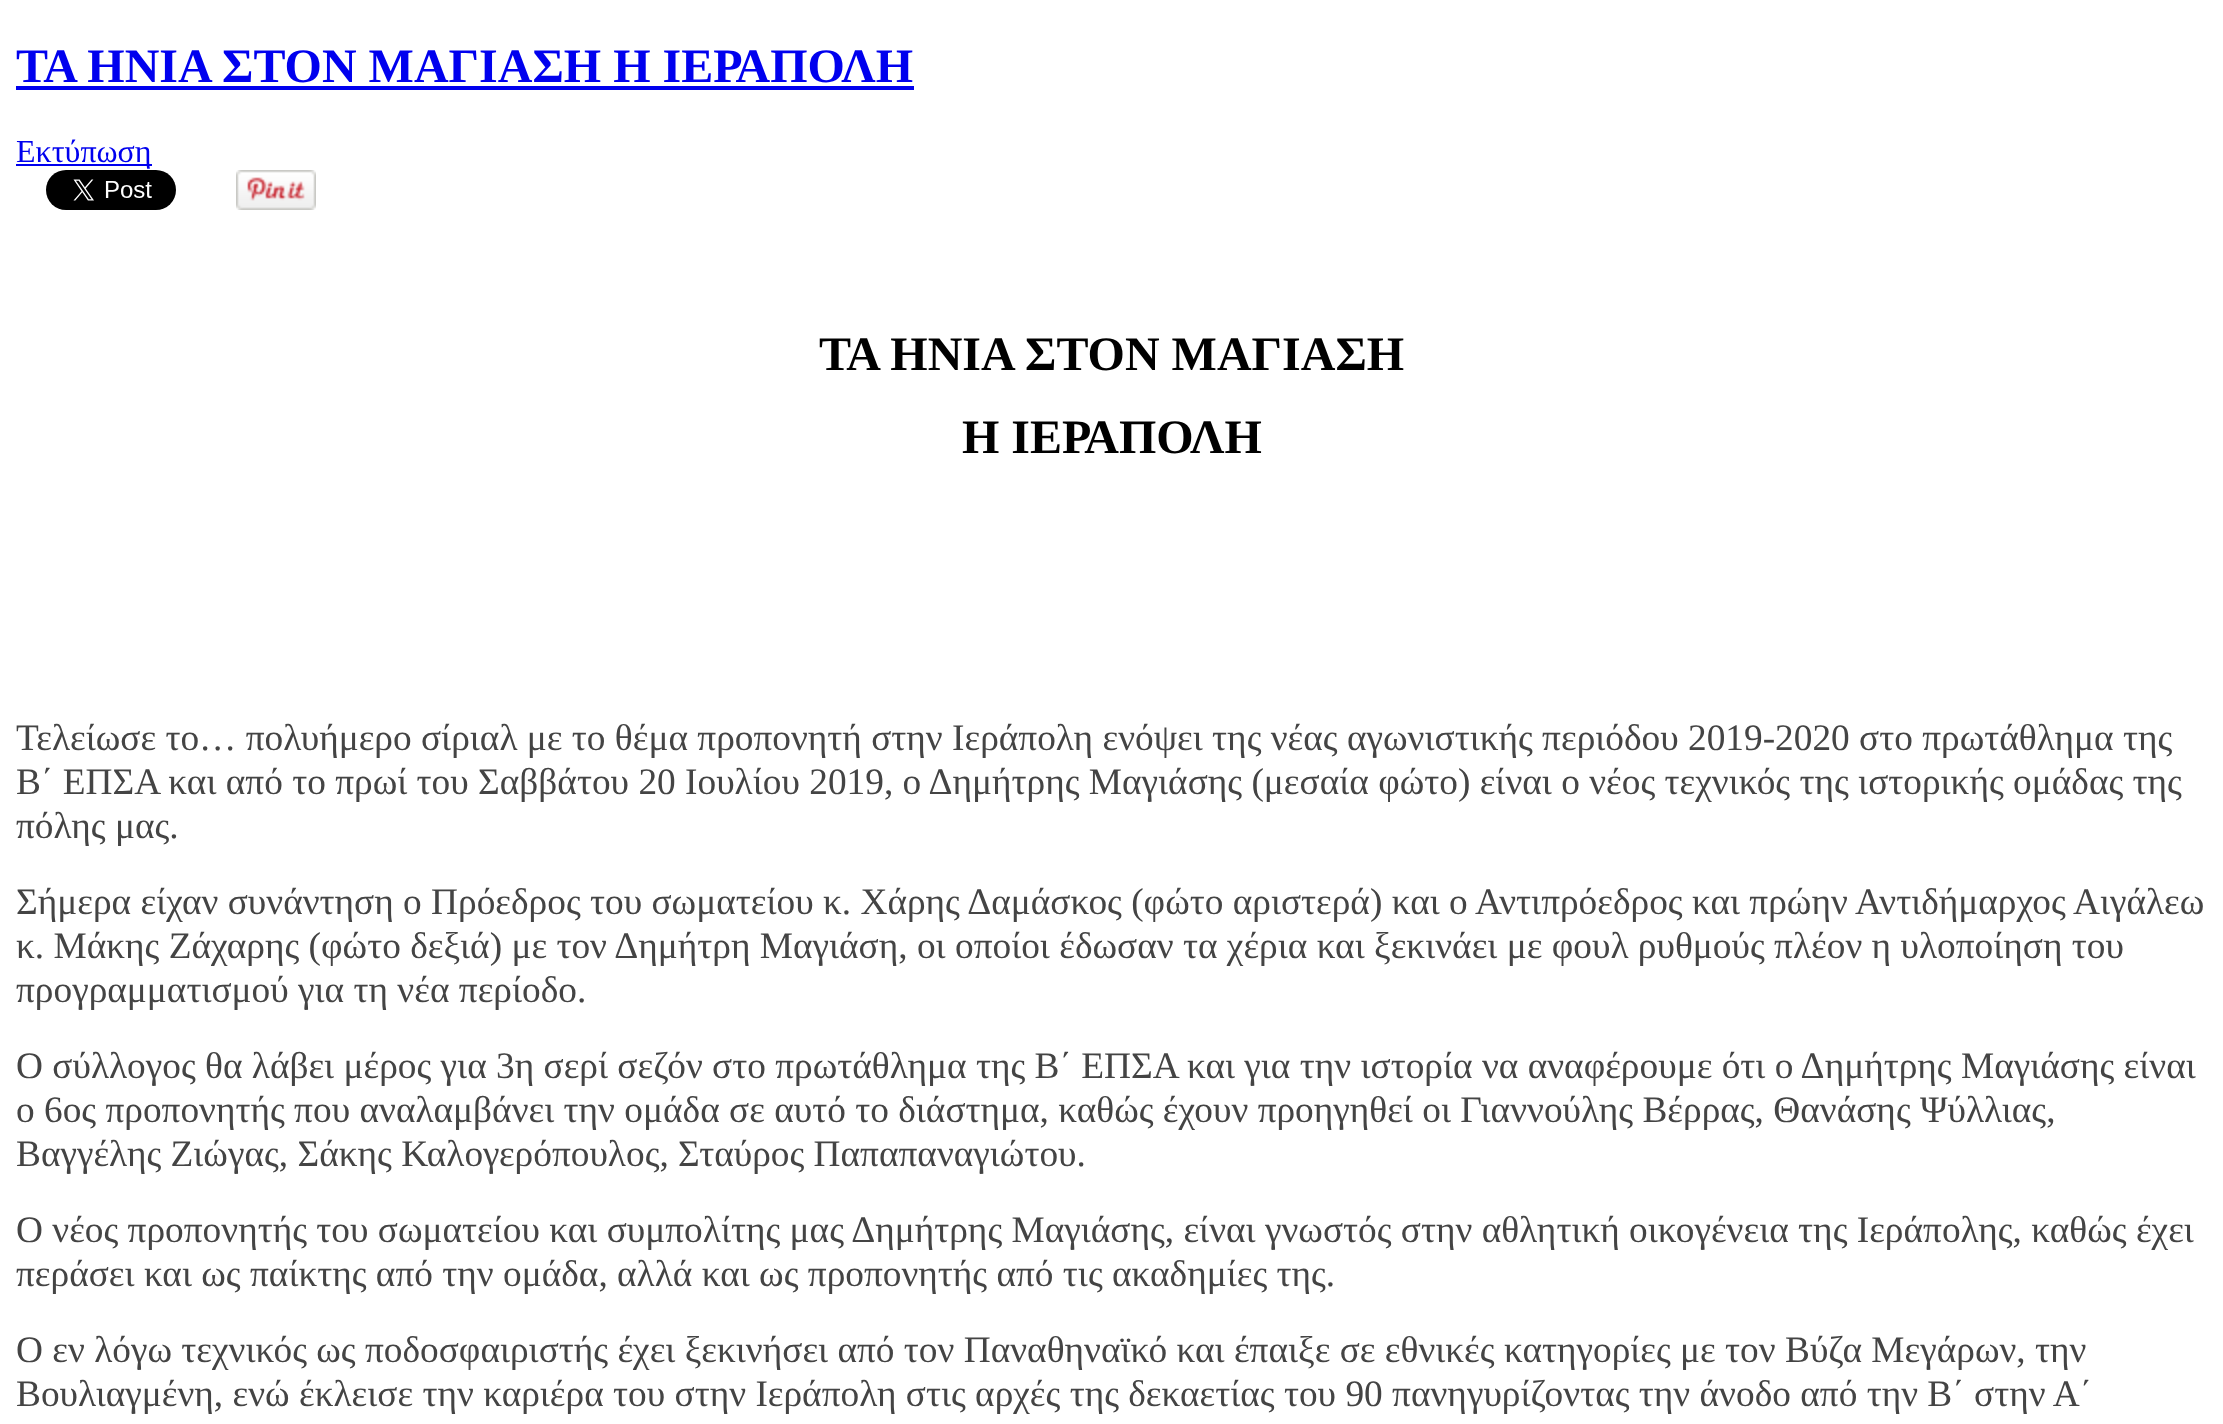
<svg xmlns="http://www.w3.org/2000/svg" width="2223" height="1424">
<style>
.a{font:bold 48px Liberation Serif;fill:#00e}
.b{font:32px Liberation Serif;fill:#00e}
.c{font:bold 48px Liberation Serif;fill:#000}
.d{font:37.33px Liberation Serif;fill:#444}
</style>
<rect width="100%" height="100%" fill="#fff"/>
<path fill="#00e" d="M16 86h898v4H16z"/>
<path fill="#00e" d="M16 164h136v2H16z"/>
<image href="1.png" x="46" y="170" width="130" height="40"/>
<image href="2.png" x="236" y="170" width="80" height="40"/>
<text class="a" x="16" y="82">ΤΑ ΗΝΙΑ ΣΤΟΝ ΜΑΓΙΑΣΗ Η ΙΕΡΑΠΟΛΗ</text>
<text class="b" x="16" y="162">Εκτύπωση</text>
<text class="c" x="819" y="370">ΤΑ ΗΝΙΑ ΣΤΟΝ ΜΑΓΙΑΣΗ</text>
<text class="c" x="962" y="453">Η ΙΕΡΑΠΟΛΗ</text>
<text class="d" x="16" y="750">Τελείωσε το… πολυήμερο σίριαλ με το θέμα προπονητή στην Ιεράπολη ενόψει της νέας αγωνιστικής περιόδου 2019-2020 στο πρωτάθλημα της</text>
<text class="d" x="16" y="794">Β΄ ΕΠΣΑ και από το πρωί του Σαββάτου 20 Ιουλίου 2019, ο Δημήτρης Μαγιάσης (μεσαία φώτο) είναι ο νέος τεχνικός της ιστορικής ομάδας της</text>
<text class="d" x="16" y="838">πόλης μας.</text>
<text class="d" x="16" y="914">Σήμερα είχαν συνάντηση ο Πρόεδρος του σωματείου κ. Χάρης Δαμάσκος (φώτο αριστερά) και ο Αντιπρόεδρος και πρώην Αντιδήμαρχος Αιγάλεω</text>
<text class="d" x="16" y="958">κ. Μάκης Ζάχαρης (φώτο δεξιά) με τον Δημήτρη Μαγιάση, οι οποίοι έδωσαν τα χέρια και ξεκινάει με φουλ ρυθμούς πλέον η υλοποίηση του</text>
<text class="d" x="16" y="1002">προγραμματισμού για τη νέα περίοδο.</text>
<text class="d" x="16" y="1078">Ο σύλλογος θα λάβει μέρος για 3η σερί σεζόν στο πρωτάθλημα της Β΄ ΕΠΣΑ και για την ιστορία να αναφέρουμε ότι ο Δημήτρης Μαγιάσης είναι</text>
<text class="d" x="16" y="1122">ο 6ος προπονητής που αναλαμβάνει την ομάδα σε αυτό το διάστημα, καθώς έχουν προηγηθεί οι Γιαννούλης Βέρρας, Θανάσης Ψύλλιας,</text>
<text class="d" x="16" y="1166">Βαγγέλης Ζιώγας, Σάκης Καλογερόπουλος, Σταύρος Παπαπαναγιώτου.</text>
<text class="d" x="16" y="1242">Ο νέος προπονητής του σωματείου και συμπολίτης μας Δημήτρης Μαγιάσης, είναι γνωστός στην αθλητική οικογένεια της Ιεράπολης, καθώς έχει</text>
<text class="d" x="16" y="1286">περάσει και ως παίκτης από την ομάδα, αλλά και ως προπονητής από τις ακαδημίες της.</text>
<text class="d" x="16" y="1362">Ο εν λόγω τεχνικός ως ποδοσφαιριστής έχει ξεκινήσει από τον Παναθηναϊκό και έπαιξε σε εθνικές κατηγορίες με τον Βύζα Μεγάρων, την</text>
<text class="d" x="16" y="1406">Βουλιαγμένη, ενώ έκλεισε την καριέρα του στην Ιεράπολη στις αρχές της δεκαετίας του 90 πανηγυρίζοντας την άνοδο από την Β΄ στην Α΄</text>
</svg>
